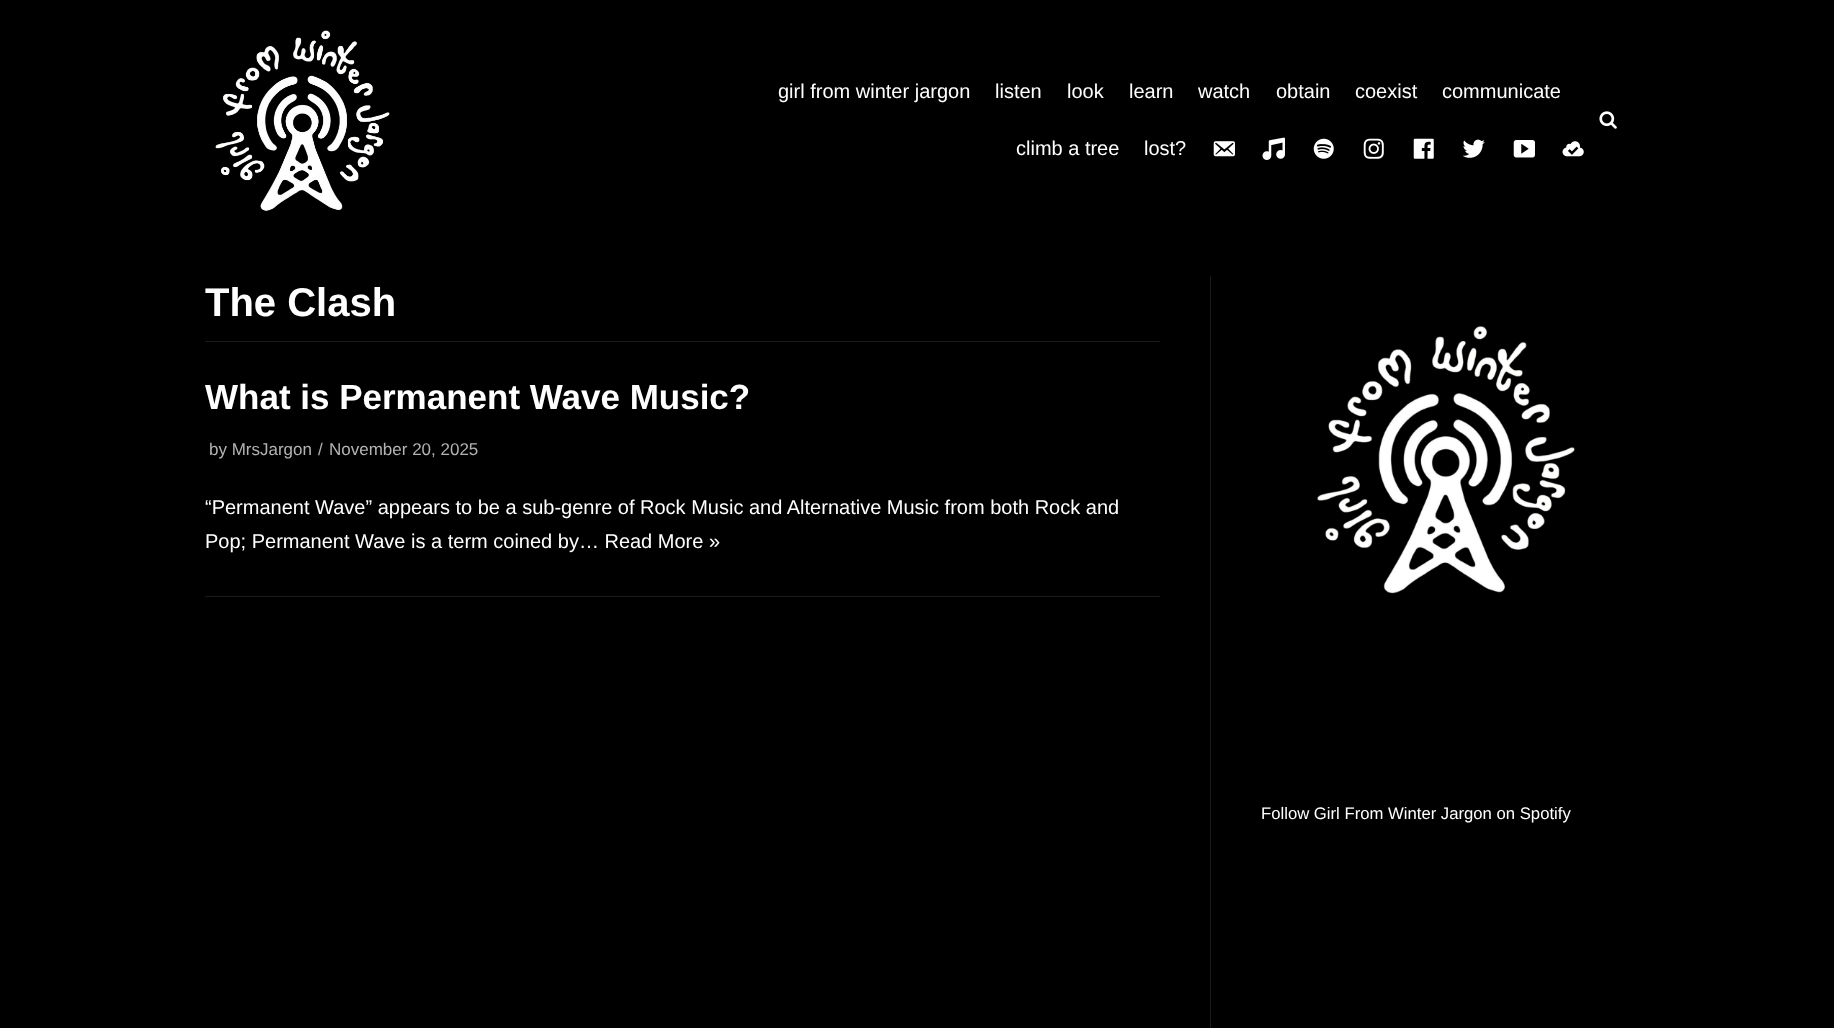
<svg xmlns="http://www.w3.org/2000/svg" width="1834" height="1028">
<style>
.a{font:20px Liberation Sans;fill:#fff}
.b{font:bold 40px Liberation Sans;fill:#fff}
.c{font:bold 35px Liberation Sans;fill:#fff}
.d{font:17px Liberation Sans;fill:#b3b3b3}
.e{font:16.7px Liberation Sans;fill:#fff}
</style>
<rect width="100%" height="100%" fill="#000"/>
<image href="1.png" x="215" y="30" width="175" height="181"/>
<image href="2.png" x="1213" y="141" width="22" height="16"/>
<image href="3.png" x="1262" y="137" width="23" height="23"/>
<image href="4.png" x="1313" y="138" width="21" height="21"/>
<image href="5.png" x="1363" y="138" width="21" height="21"/>
<image href="6.png" x="1413" y="138" width="21" height="21"/>
<image href="7.png" x="1462" y="139" width="23" height="19"/>
<image href="8.png" x="1513" y="140" width="22" height="18"/>
<image href="9.png" x="1562" y="141" width="22" height="16"/>
<image href="10.png" x="1599" y="111" width="18" height="18"/>
<path fill="#1a1a1a" d="M205 341h955v1H205z"/>
<path fill="#1a1a1a" d="M205 596h955v1H205z"/>
<path fill="#1a1a1a" d="M1210 276h1v752H1210z"/>
<image href="11.png" x="1317" y="326" width="258" height="268"/>
<text class="a" x="778" y="98">girl from winter jargon</text>
<text class="a" x="995" y="98">listen</text>
<text class="a" x="1067" y="98">look</text>
<text class="a" x="1129" y="98">learn</text>
<text class="a" x="1198" y="98">watch</text>
<text class="a" x="1276" y="98">obtain</text>
<text class="a" x="1355" y="98">coexist</text>
<text class="a" x="1442" y="98">communicate</text>
<text class="a" x="1016" y="155">climb a tree</text>
<text class="a" x="1144" y="155">lost?</text>
<text class="b" x="205" y="316">The Clash</text>
<text class="c" x="205" y="409">What is Permanent Wave Music?</text>
<text class="d" x="209" y="455">by MrsJargon</text>
<text class="d" x="318" y="455">/</text>
<text class="d" x="329" y="455">November 20, 2025</text>
<text class="a" x="205" y="514">“Permanent Wave” appears to be a sub-genre of Rock Music and Alternative Music from both Rock and</text>
<text class="a" x="205" y="548">Pop; Permanent Wave is a term coined by… Read More »</text>
<text class="e" x="1261" y="819">Follow Girl From Winter Jargon on Spotify</text>
</svg>
